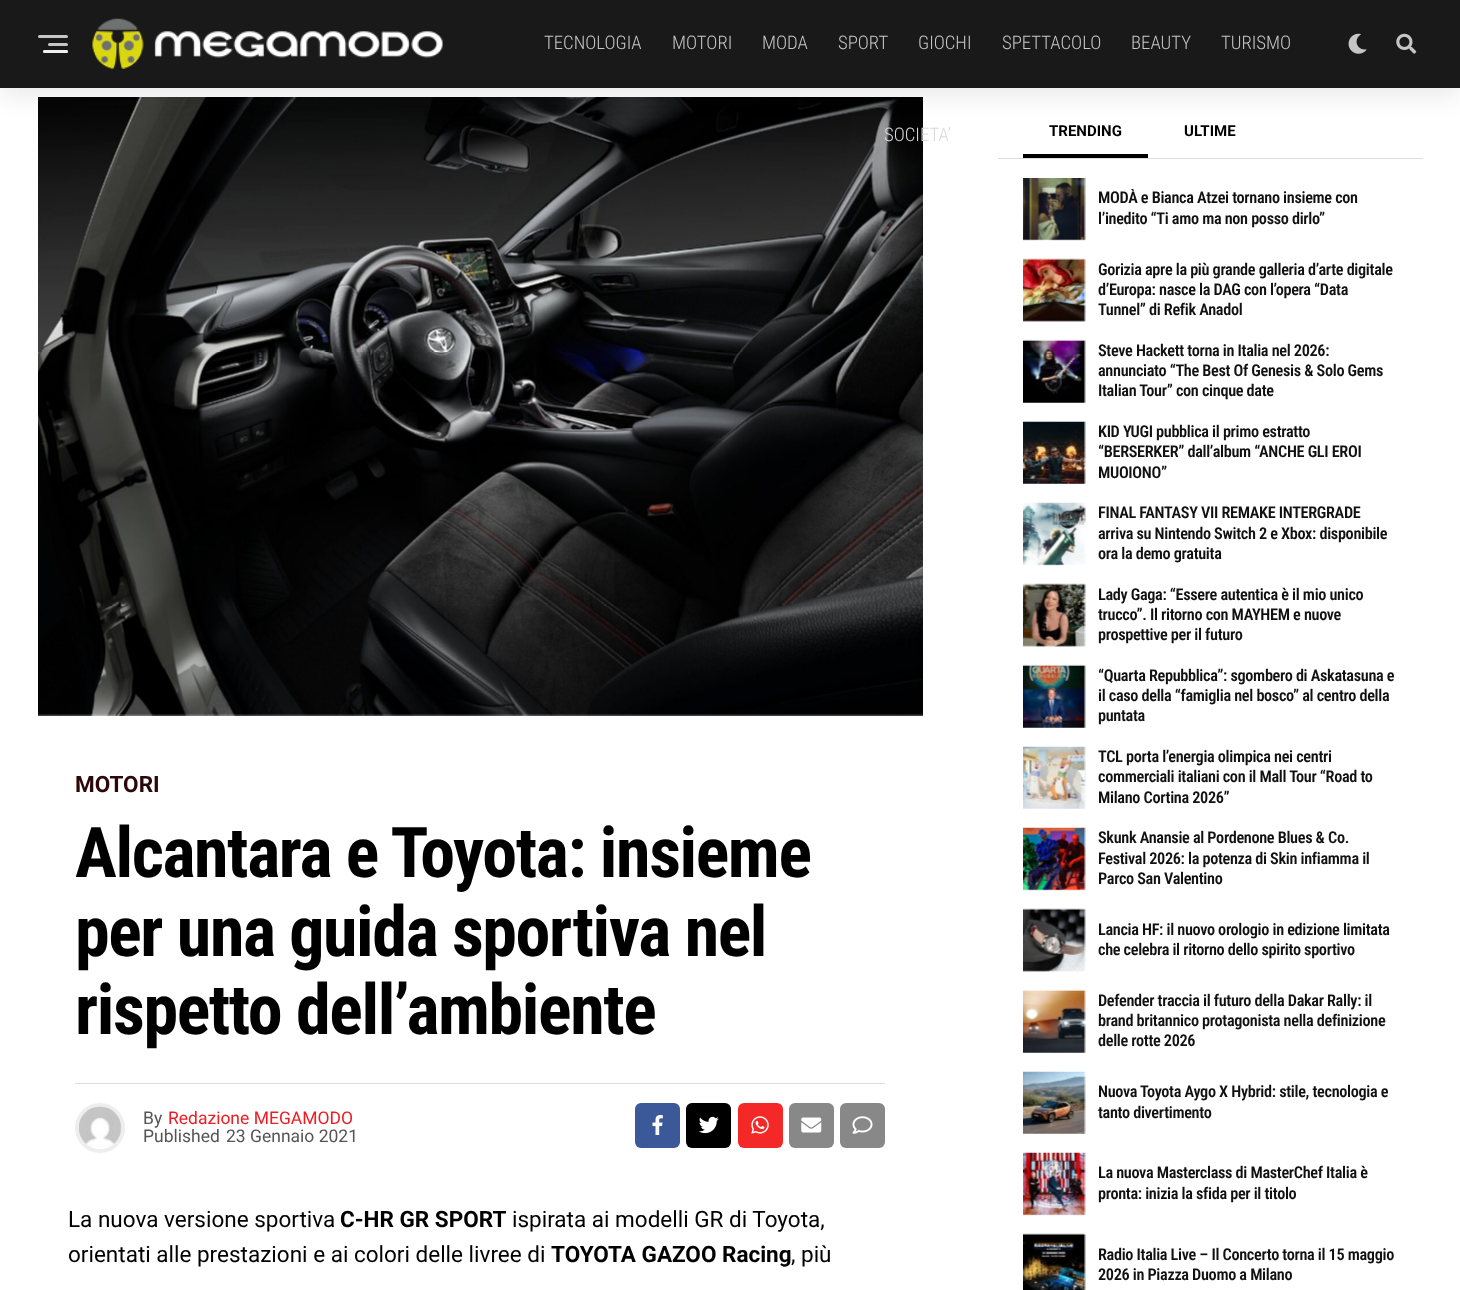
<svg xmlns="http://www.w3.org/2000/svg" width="1460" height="1290">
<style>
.a{font:300 18.75px Roboto Condensed;fill:#c6c6c6}
.b{font:300 18.75px Roboto Condensed;fill:#d9d9d9}
.c{font:bold 22.5px Roboto;fill:#2d0808}
.d{font:bold 70px Roboto Condensed;letter-spacing:-1.4px;fill:#000}
.e{font:17.5px Roboto;fill:#555}
.f{font:17.5px Roboto;fill:#ed1c24}
.g{font:22.5px Roboto;fill:#000}
.h{font:bold 22.5px Roboto;fill:#000}
.i{font:bold 15px Roboto;fill:#000}
.j{font:600 16.25px Roboto Condensed;letter-spacing:-0.33px;fill:#111}
</style>
<defs>
<clipPath id="clip1"><path d="M1098 189h300v40H1098z"/></clipPath>
</defs>
<rect width="100%" height="100%" fill="#fff"/>
<image href="4.png" x="38" y="97" width="885" height="619"/>
<path fill="#15151e14" filter="blur(10px)" d="M0 10h1460v88H0z"/>
<path fill="#191919" d="M0 0h1460v88H0z"/>
<rect fill="#c6c6c6" x="38" y="35" width="30" height="3" rx="1.5"/>
<rect fill="#c6c6c6" x="48" y="43" width="20" height="3" rx="1.5"/>
<rect fill="#c6c6c6" x="43" y="50" width="25" height="3" rx="1.5"/>
<rect fill="#ffffffbf" x="43" y="50" width="25" height="3" rx="1.5"/>
<image href="1.png" x="92" y="18" width="351" height="51"/>
<image href="2.png" x="1348" y="33" width="19" height="21"/>
<image href="3.png" x="1396" y="33" width="21" height="21"/>
<path fill="#ddd" d="M75 1083h810v1H75z"/>
<circle fill="none" stroke="#eee" stroke-width="4" cx="100" cy="1128" r="23"/>
<image href="5.png" x="79" y="1106" width="43" height="43"/>
<rect fill="#3b5998" x="635" y="1103" width="45" height="45" rx="6"/>
<image href="6.png" x="652" y="1115" width="11" height="20"/>
<rect fill="#000" x="686" y="1103" width="45" height="45" rx="6"/>
<image href="7.png" x="698" y="1116" width="21" height="18"/>
<rect fill="#f52828" x="738" y="1103" width="45" height="45" rx="6"/>
<image href="8.png" x="751" y="1116" width="18" height="18"/>
<rect fill="#888" x="789" y="1103" width="45" height="45" rx="6"/>
<image href="9.png" x="801" y="1117" width="21" height="16"/>
<rect fill="#888" x="840" y="1103" width="45" height="45" rx="6"/>
<image href="10.png" x="852" y="1116" width="21" height="18"/>
<path fill="#ddd" d="M998 158h425v1H998z"/>
<path fill="#000" d="M1023 154h125v4H1023z"/>
<image href="11.png" x="1023" y="178" width="63" height="63"/>
<image href="12.png" x="1023" y="258" width="63" height="64"/>
<image href="13.png" x="1023" y="339" width="63" height="64"/>
<image href="14.png" x="1023" y="421" width="63" height="63"/>
<image href="15.png" x="1023" y="502" width="63" height="64"/>
<image href="16.png" x="1023" y="583" width="63" height="64"/>
<image href="17.png" x="1023" y="664" width="63" height="64"/>
<image href="18.png" x="1023" y="746" width="63" height="63"/>
<image href="19.png" x="1023" y="827" width="63" height="64"/>
<image href="20.png" x="1023" y="908" width="63" height="64"/>
<image href="21.png" x="1023" y="989" width="63" height="64"/>
<image href="22.png" x="1023" y="1071" width="63" height="63"/>
<image href="23.png" x="1023" y="1152" width="63" height="64"/>
<image href="24.png" x="1023" y="1233" width="63" height="57"/>
<text class="a" x="544" y="49">TECNOLOGIA</text>
<text class="a" x="672" y="49">MOTORI</text>
<text class="a" x="762" y="49">MODA</text>
<text class="a" x="838" y="49">SPORT</text>
<text class="a" x="918" y="49">GIOCHI</text>
<text class="a" x="1002" y="49">SPETTACOLO</text>
<text class="a" x="1131" y="49">BEAUTY</text>
<text class="a" x="1221" y="49">TURISMO</text>
<text class="b" x="884" y="141">SOCIETA’</text>
<text class="c" x="75" y="792">MOTORI</text>
<text class="d" x="75" y="877">Alcantara e Toyota: insieme</text>
<text class="d" x="75" y="956">per una guida sportiva nel</text>
<text class="d" x="75" y="1034">rispetto dell’ambiente</text>
<text class="e" x="143" y="1124">By</text>
<text class="f" x="168" y="1124">Redazione MEGAMODO</text>
<text class="e" x="143" y="1142">Published</text>
<text class="e" x="226" y="1142">23 Gennaio 2021</text>
<text class="g" x="68" y="1227">La nuova versione sportiva</text>
<text class="h" x="340" y="1227">C-HR GR SPORT</text>
<text class="g" x="512" y="1227">ispirata ai modelli GR di Toyota,</text>
<text class="g" x="68" y="1262">orientati alle prestazioni e ai colori delle livree di</text>
<text class="h" x="551" y="1262">TOYOTA GAZOO Racing</text>
<text class="g" x="791" y="1262">, più</text>
<text class="i" x="1049" y="136">TRENDING</text>
<text class="i" x="1184" y="136">ULTIME</text>
<g clip-path="url(#clip1)">
<text class="j" x="1098" y="203">MODÀ e Bianca Atzei tornano insieme con</text>
</g>
<text class="j" x="1098" y="224">l’inedito “Ti amo ma non posso dirlo”</text>
<text class="j" x="1098" y="275">Gorizia apre la più grande galleria d’arte digitale</text>
<text class="j" x="1098" y="295">d’Europa: nasce la DAG con l’opera “Data</text>
<text class="j" x="1098" y="315">Tunnel” di Refik Anadol</text>
<text class="j" x="1098" y="356">Steve Hackett torna in Italia nel 2026:</text>
<text class="j" x="1098" y="376">annunciato “The Best Of Genesis &amp; Solo Gems</text>
<text class="j" x="1098" y="396">Italian Tour” con cinque date</text>
<text class="j" x="1098" y="437">KID YUGI pubblica il primo estratto</text>
<text class="j" x="1098" y="457">“BERSERKER” dall’album “ANCHE GLI EROI</text>
<text class="j" x="1098" y="478">MUOIONO”</text>
<text class="j" x="1098" y="518">FINAL FANTASY VII REMAKE INTERGRADE</text>
<text class="j" x="1098" y="539">arriva su Nintendo Switch 2 e Xbox: disponibile</text>
<text class="j" x="1098" y="559">ora la demo gratuita</text>
<text class="j" x="1098" y="600">Lady Gaga: “Essere autentica è il mio unico</text>
<text class="j" x="1098" y="620">trucco”. Il ritorno con MAYHEM e nuove</text>
<text class="j" x="1098" y="640">prospettive per il futuro</text>
<text class="j" x="1098" y="681">“Quarta Repubblica”: sgombero di Askatasuna e</text>
<text class="j" x="1098" y="701">il caso della “famiglia nel bosco” al centro della</text>
<text class="j" x="1098" y="721">puntata</text>
<text class="j" x="1098" y="762">TCL porta l’energia olimpica nei centri</text>
<text class="j" x="1098" y="782">commerciali italiani con il Mall Tour “Road to</text>
<text class="j" x="1098" y="803">Milano Cortina 2026”</text>
<text class="j" x="1098" y="843">Skunk Anansie al Pordenone Blues &amp; Co.</text>
<text class="j" x="1098" y="864">Festival 2026: la potenza di Skin infiamma il</text>
<text class="j" x="1098" y="884">Parco San Valentino</text>
<text class="j" x="1098" y="935">Lancia HF: il nuovo orologio in edizione limitata</text>
<text class="j" x="1098" y="955">che celebra il ritorno dello spirito sportivo</text>
<text class="j" x="1098" y="1006">Defender traccia il futuro della Dakar Rally: il</text>
<text class="j" x="1098" y="1026">brand britannico protagonista nella definizione</text>
<text class="j" x="1098" y="1046">delle rotte 2026</text>
<text class="j" x="1098" y="1097">Nuova Toyota Aygo X Hybrid: stile, tecnologia e</text>
<text class="j" x="1098" y="1118">tanto divertimento</text>
<text class="j" x="1098" y="1178">La nuova Masterclass di MasterChef Italia è</text>
<text class="j" x="1098" y="1199">pronta: inizia la sfida per il titolo</text>
<text class="j" x="1098" y="1260">Radio Italia Live – Il Concerto torna il 15 maggio</text>
<text class="j" x="1098" y="1280">2026 in Piazza Duomo a Milano</text>
</svg>
